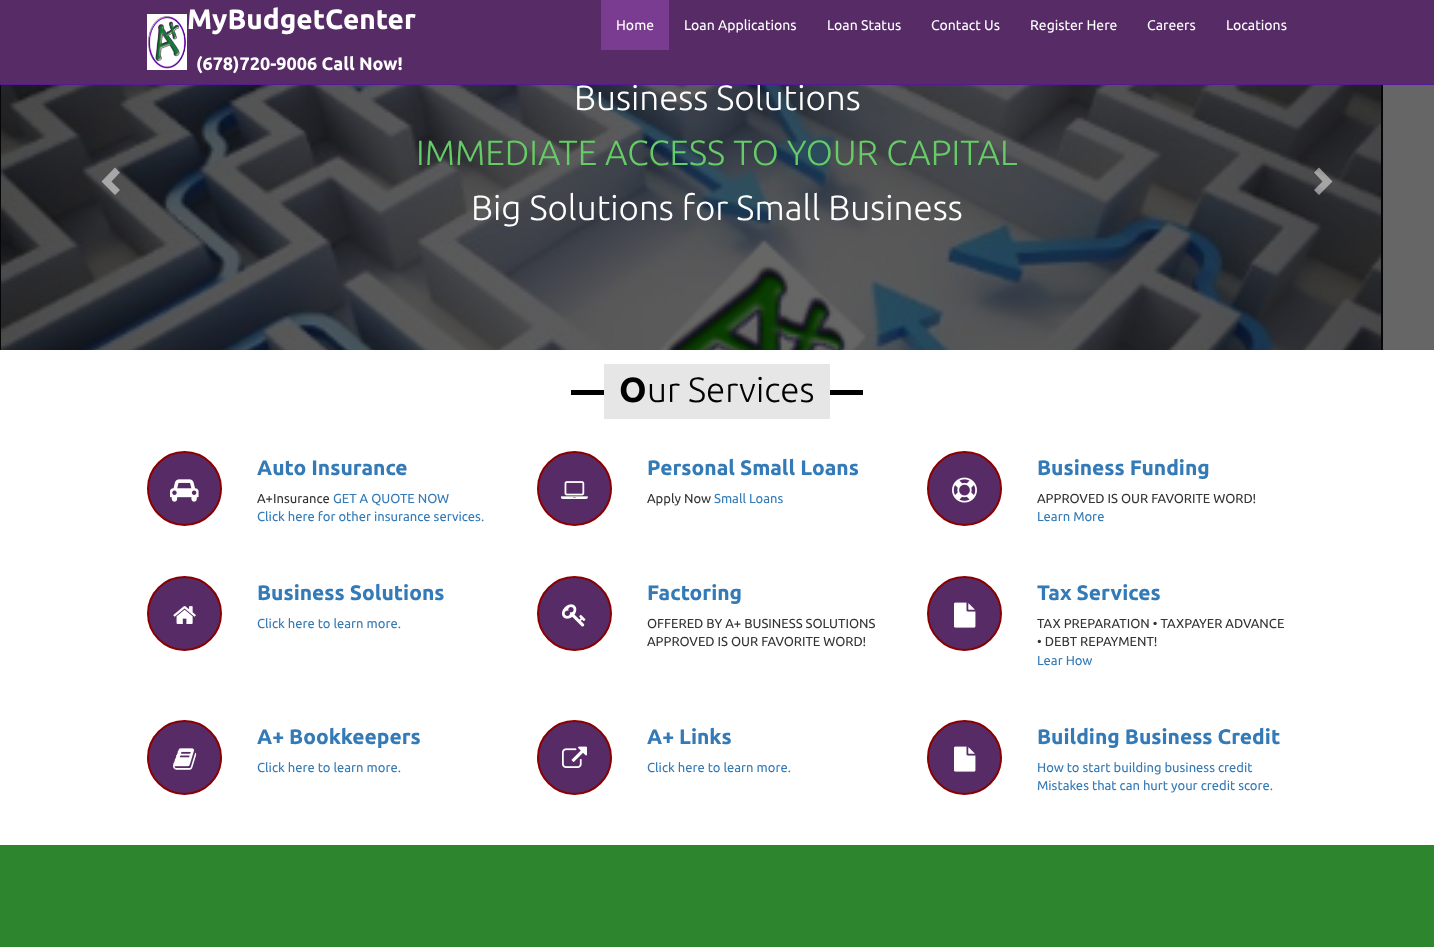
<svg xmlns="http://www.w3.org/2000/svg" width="1434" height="947">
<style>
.a{font:300 35px Ubuntu;fill:#fff}
.b{font:14px Ubuntu;fill:#fff}
.c{font:bold 18px Ubuntu;fill:#fff}
.d{font:bold 28px Ubuntu;fill:#fff}
.e{font:300 35px Ubuntu;fill:#6c6}
.f{font:bold 35px Ubuntu;fill:#000}
.g{font:300 35px Ubuntu;fill:#000}
.h{font:bold 21px Ubuntu;fill:#337ab7}
.i{font:13px Ubuntu;fill:#333}
.j{font:13px Ubuntu;fill:#337ab7}
</style>
<rect width="100%" height="100%" fill="#fff"/>
<path fill="#666" d="M1383 85h51v265H1383z"/>
<image href="2.png" x="0" y="85" width="1383" height="265"/>
<path fill="#ffffff80" d="M120 172.5l-8.5 9l8.5 8.5l-5 5l-13.5-13.5l13.5-14z"/>
<path fill="#ffffff80" d="M1332.5 181.5l-13.5 13.5l-5-5l8.5-8.5l-8.5-9l5-5z"/>
<path fill="#000" d="M571 390h292v5H571z"/>
<path fill="#e6e6e6" d="M604 364h226v55H604z"/>
<circle fill="#562b66" stroke="#8a0000" stroke-width="2" cx="184.5" cy="488.5" r="36.5"/>
<image href="3.png" x="170" y="479" width="29" height="23"/>
<circle fill="#562b66" stroke="#8a0000" stroke-width="2" cx="574.5" cy="488.5" r="36.5"/>
<image href="4.png" x="561" y="481" width="27" height="18"/>
<circle fill="#562b66" stroke="#8a0000" stroke-width="2" cx="964.5" cy="488.5" r="36.5"/>
<image href="5.png" x="952" y="477" width="25" height="26"/>
<circle fill="#562b66" stroke="#8a0000" stroke-width="2" cx="184.5" cy="613.5" r="36.5"/>
<image href="6.png" x="173" y="606" width="23" height="18"/>
<circle fill="#562b66" stroke="#8a0000" stroke-width="2" cx="574.5" cy="613.5" r="36.5"/>
<image href="7.png" x="562" y="604" width="24" height="23"/>
<circle fill="#562b66" stroke="#8a0000" stroke-width="2" cx="964.5" cy="613.5" r="36.5"/>
<image href="8.png" x="954" y="602" width="22" height="26"/>
<circle fill="#562b66" stroke="#8a0000" stroke-width="2" cx="184.5" cy="757.5" r="36.5"/>
<image href="9.png" x="173" y="748" width="24" height="22"/>
<circle fill="#562b66" stroke="#8a0000" stroke-width="2" cx="574.5" cy="757.5" r="36.5"/>
<image href="10.png" x="562" y="746" width="25" height="22"/>
<circle fill="#562b66" stroke="#8a0000" stroke-width="2" cx="964.5" cy="757.5" r="36.5"/>
<image href="8.png" x="954" y="746" width="22" height="26"/>
<path fill="#2d862d" d="M0 845h1434v102H0z"/>
<text class="a" x="574" y="110">Business Solutions</text>
<path fill="#562b66" d="M0 0h1434v84H0z"/>
<text class="b" x="1226" y="30">Locations</text>
<text class="b" x="1147" y="30">Careers</text>
<text class="b" x="1030" y="30">Register Here</text>
<text class="b" x="931" y="30">Contact Us</text>
<text class="b" x="827" y="30">Loan Status</text>
<text class="b" x="684" y="30">Loan Applications</text>
<path fill="#7a3c90" d="M601 0h68v50H601z"/>
<text class="b" x="616" y="30">Home</text>
<text class="c" x="196" y="70">(678)720-9006 Call Now!</text>
<image href="1.png" x="147" y="14" width="40" height="56"/>
<text class="d" x="187" y="29">MyBudgetCenter</text>
<path fill="#57179a" d="M0 84h1434v1H0z"/>
<text class="e" x="416" y="165">IMMEDIATE ACCESS TO YOUR CAPITAL</text>
<text class="a" x="471" y="220">Big Solutions for Small Business</text>
<text class="f" x="619" y="402">O</text>
<text class="g" x="647" y="402">ur Services</text>
<text class="h" x="257" y="475">Auto Insurance</text>
<text class="i" x="257" y="503">A+Insurance</text>
<text class="j" x="333" y="503">GET A QUOTE NOW</text>
<text class="j" x="257" y="521">Click here for other insurance services.</text>
<text class="h" x="647" y="475">Personal Small Loans</text>
<text class="i" x="647" y="503">Apply Now</text>
<text class="j" x="714" y="503">Small Loans</text>
<text class="h" x="1037" y="475">Business Funding</text>
<text class="i" x="1037" y="503">APPROVED IS OUR FAVORITE WORD!</text>
<text class="j" x="1037" y="521">Learn More</text>
<text class="h" x="257" y="600">Business Solutions</text>
<text class="j" x="257" y="628">Click here to learn more.</text>
<text class="h" x="647" y="600">Factoring</text>
<text class="i" x="647" y="628">OFFERED BY A+ BUSINESS SOLUTIONS</text>
<text class="i" x="647" y="646">APPROVED IS OUR FAVORITE WORD!</text>
<text class="h" x="1037" y="600">Tax Services</text>
<text class="i" x="1037" y="628">TAX PREPARATION • TAXPAYER ADVANCE</text>
<text class="i" x="1037" y="646">• DEBT REPAYMENT!</text>
<text class="j" x="1037" y="665">Lear How</text>
<text class="h" x="257" y="744">A+ Bookkeepers</text>
<text class="j" x="257" y="772">Click here to learn more.</text>
<text class="h" x="647" y="744">A+ Links</text>
<text class="j" x="647" y="772">Click here to learn more.</text>
<text class="h" x="1037" y="744">Building Business Credit</text>
<text class="j" x="1037" y="772">How to start building business credit</text>
<text class="j" x="1037" y="790">Mistakes that can hurt your credit score.</text>
</svg>
